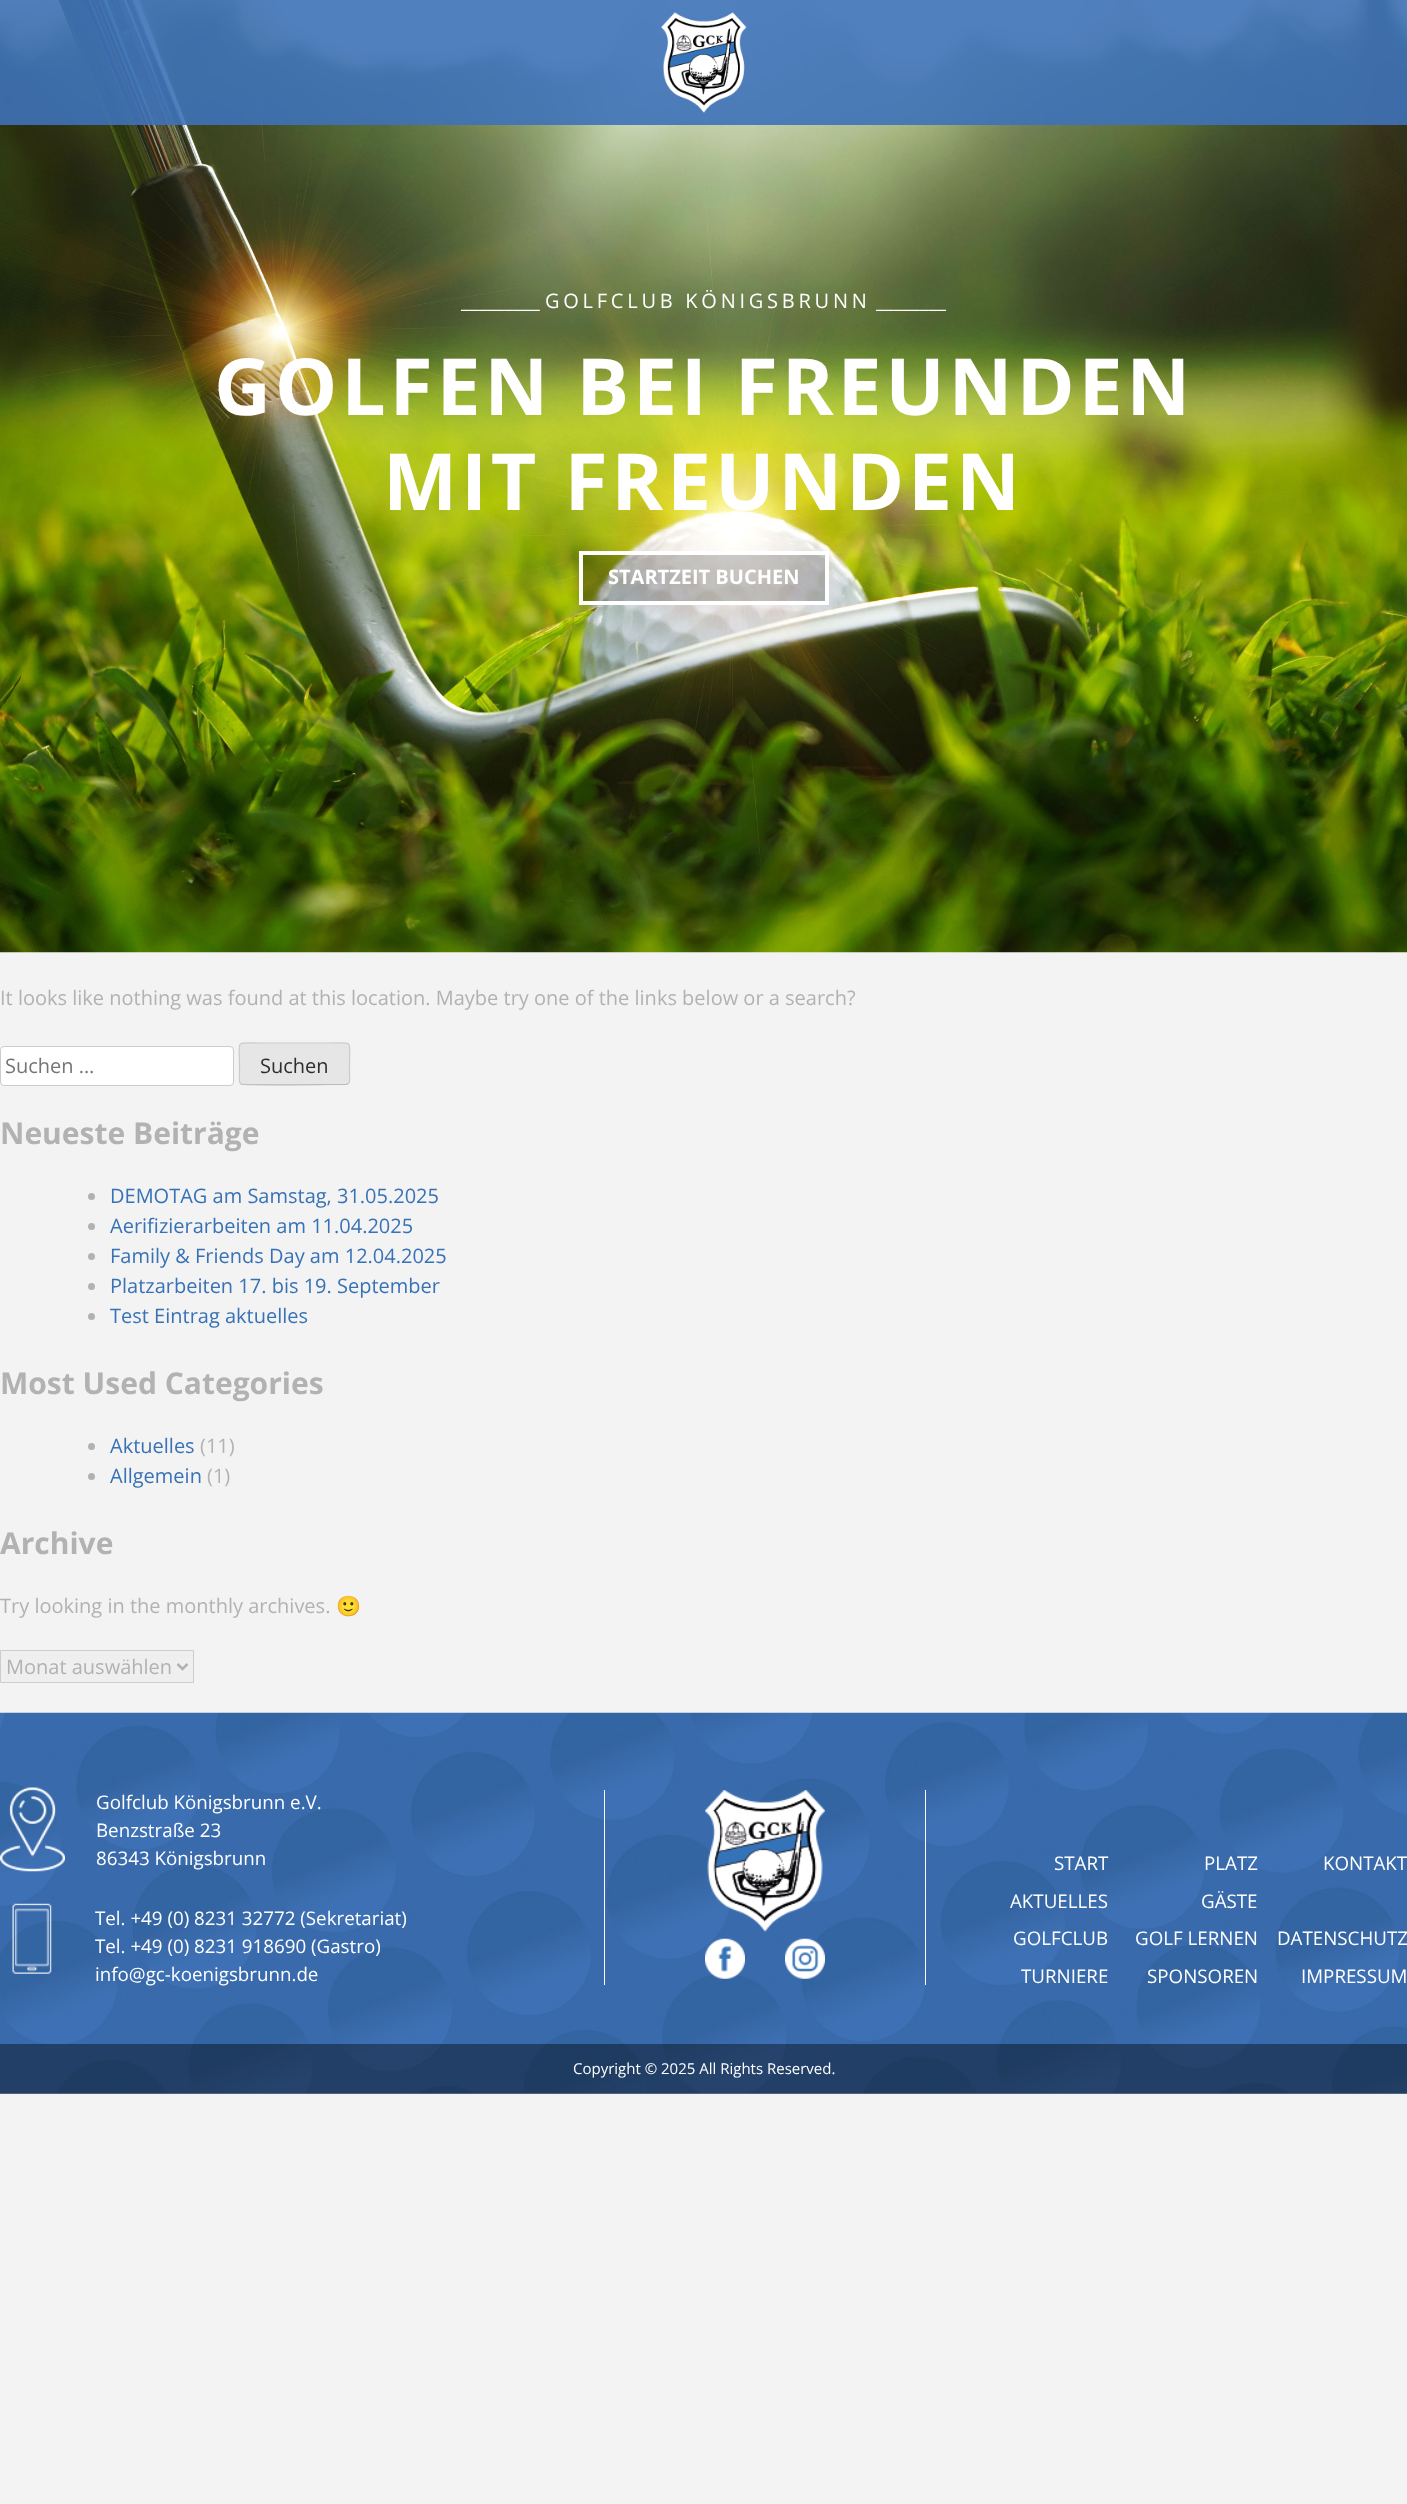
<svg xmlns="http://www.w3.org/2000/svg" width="1407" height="2504">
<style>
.a{font:20px Open Sans;letter-spacing:3.75px;fill:#fff}
.b{font:20px Open Sans;fill:#fff}
.c{font:bold 78.75px Open Sans;letter-spacing:3.75px;fill:#fff}
.d{font:bold 20px Open Sans;fill:#fff}
.e{font:20px Open Sans;fill:#b3b2b2}
.f{font:20px Open Sans;fill:#757575}
.g{font:20px Open Sans;fill:#2e2e2e}
.h{font:bold 30px Open Sans;fill:#b3b2b2}
.i{font:20px Open Sans;fill:#3872b6}
.j{font:20px Noto Color Emoji;fill:#b3b2b2}
.k{font:18.75px Open Sans;fill:#fff}
.l{font:15px Open Sans;fill:#fff}
</style>
<rect width="100%" height="100%" fill="#f3f3f3"/>
<image href="2.png" x="0" y="0" width="1407" height="953"/>
<path fill="#3e72b8e6" d="M0 0h1407v125H0z"/>
<image href="1.png" x="661" y="12" width="86" height="101"/>
<path fill="#00000033" stroke="#fff" stroke-width="4" d="M581 553h246v50H581z"/>
<rect fill="#fff" stroke="#ccc" x="0.5" y="1046.5" width="233" height="39" rx="3.5"/>
<rect fill="#e6e6e6" x="239" y="1043" width="111" height="42" rx="4"/>
<path fill="none" stroke="#bbb" stroke-width="1.2" d="M348.5 1083.5l-2.5 1h-17c-9.5 0-86 1-88-.5l-.5-.5"/>
<path fill="none" stroke="#ccc" stroke-width="1.2" d="M240.5 1083.5c-2-2-1-6.5-1-8v-11.5c0-25-5-21 20.5-21h69c25 0 20.5-4 20.5 21v11.5c0 1.5 1 6-1 8"/>
<circle fill="#b3b2b2" cx="91.5" cy="1196.5" r="3.5"/>
<circle fill="#b3b2b2" cx="91.5" cy="1226.5" r="3.5"/>
<circle fill="#b3b2b2" cx="91.5" cy="1256.5" r="3.5"/>
<circle fill="#b3b2b2" cx="91.5" cy="1286.5" r="3.5"/>
<circle fill="#b3b2b2" cx="91.5" cy="1316.5" r="3.5"/>
<circle fill="#b3b2b2" cx="91.5" cy="1446.5" r="3.5"/>
<circle fill="#b3b2b2" cx="91.5" cy="1476.5" r="3.5"/>
<path fill="#efefef" stroke="#ccc" d="M0.5 1650.5h193v32H0.5z"/>
<path fill="none" stroke="#b3b2b2" stroke-width="2.5" d="M177.5 1664l5 5l5-5"/>
<image href="3.png" x="0" y="1712" width="1407" height="382"/>
<image href="4.png" x="0" y="1787" width="65" height="85"/>
<image href="5.png" x="12" y="1903" width="40" height="71"/>
<path fill="#fff" d="M925 1790h1v195H925z"/>
<path fill="#fff" d="M604 1790h1v195H604z"/>
<image href="6.png" x="705" y="1790" width="120" height="142"/>
<image href="7.png" x="705" y="1938" width="40" height="41"/>
<image href="8.png" x="785" y="1938" width="40" height="41"/>
<path fill="#00000066" d="M0 2044h1407v50H0z"/>
<text class="a" x="545" y="308">GOLFCLUB KÖNIGSBRUNN</text>
<text class="b" x="461" y="308">_________</text>
<text class="b" x="876" y="308">________</text>
<text class="c" x="214" y="415">GOLFEN BEI FREUNDEN</text>
<text class="c" x="383" y="510">MIT FREUNDEN</text>
<text class="d" x="608" y="584">STARTZEIT BUCHEN</text>
<text class="e" x="0" y="1005">It looks like nothing was found at this location. Maybe try one of the links below or a search?</text>
<text class="f" x="5" y="1073">Suchen …</text>
<text class="g" x="260" y="1073">Suchen</text>
<text class="h" x="0" y="1144">Neueste Beiträge</text>
<text class="i" x="110" y="1203">DEMOTAG am Samstag, 31.05.2025</text>
<text class="i" x="110" y="1233">Aerifizierarbeiten am 11.04.2025</text>
<text class="i" x="110" y="1263">Family &amp; Friends Day am 12.04.2025</text>
<text class="i" x="110" y="1293">Platzarbeiten 17. bis 19. September</text>
<text class="i" x="110" y="1323">Test Eintrag aktuelles</text>
<text class="h" x="0" y="1394">Most Used Categories</text>
<text class="i" x="110" y="1453">Aktuelles</text>
<text class="e" x="200" y="1453">(11)</text>
<text class="i" x="110" y="1483">Allgemein</text>
<text class="e" x="207" y="1483">(1)</text>
<text class="h" x="0" y="1554">Archive</text>
<text class="e" x="0" y="1613">Try looking in the monthly archives.</text>
<text class="j" x="336" y="1613">🙂</text>
<text class="e" x="6" y="1674">Monat auswählen</text>
<text class="k" x="96" y="1809">Golfclub Königsbrunn e.V.</text>
<text class="k" x="96" y="1837">Benzstraße 23</text>
<text class="k" x="96" y="1865">86343 Königsbrunn</text>
<text class="k" x="95" y="1925">Tel. +49 (0) 8231 32772 (Sekretariat)</text>
<text class="k" x="95" y="1953">Tel. +49 (0) 8231 918690 (Gastro)</text>
<text class="k" x="95" y="1981">info@gc-koenigsbrunn.de</text>
<text class="k" x="1054" y="1870">START</text>
<text class="k" x="1204" y="1870">PLATZ</text>
<text class="k" x="1323" y="1870">KONTAKT</text>
<text class="k" x="1010" y="1908">AKTUELLES</text>
<text class="k" x="1201" y="1908">GÄSTE</text>
<text class="k" x="1013" y="1945">GOLFCLUB</text>
<text class="k" x="1135" y="1945">GOLF LERNEN</text>
<text class="k" x="1277" y="1945">DATENSCHUTZ</text>
<text class="k" x="1021" y="1983">TURNIERE</text>
<text class="k" x="1147" y="1983">SPONSOREN</text>
<text class="k" x="1301" y="1983">IMPRESSUM</text>
<text class="l" x="573" y="2074">Copyright © 2025 All Rights Reserved.</text>
</svg>
